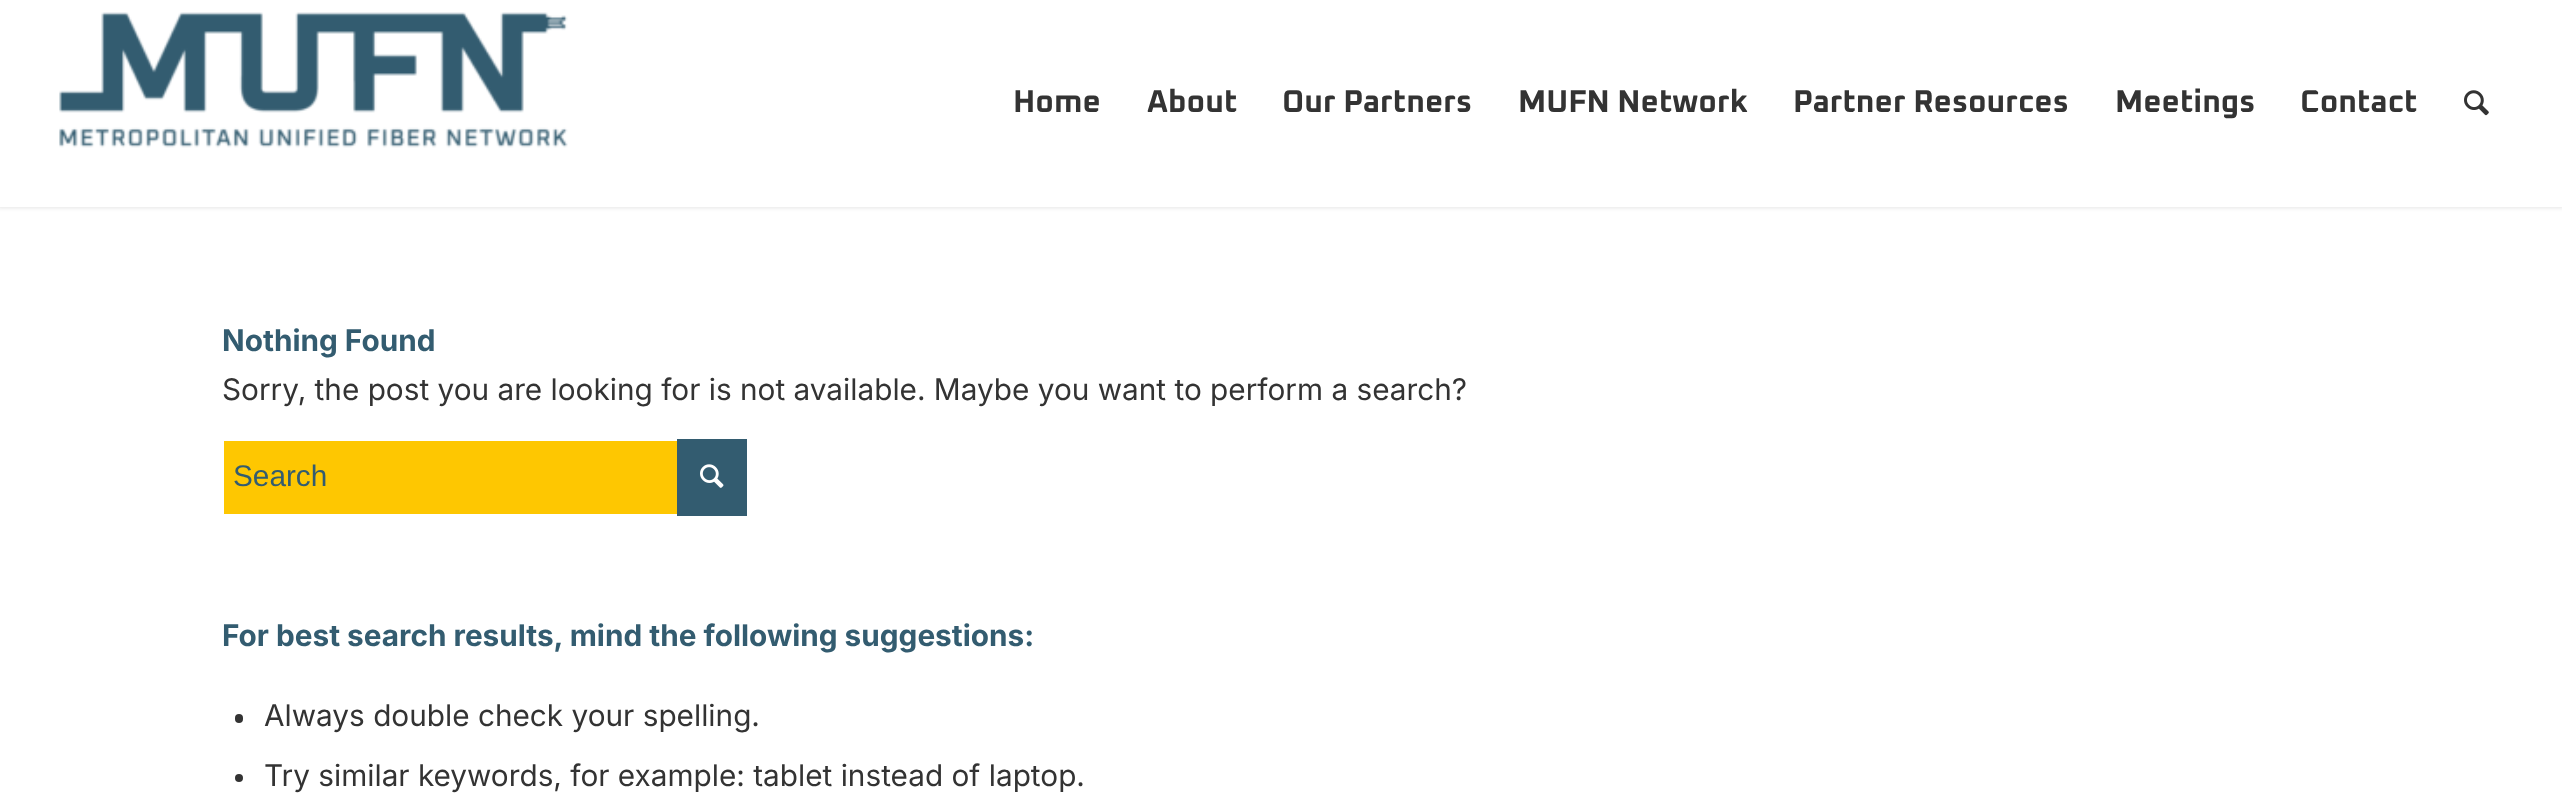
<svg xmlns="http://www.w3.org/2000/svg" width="2562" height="812">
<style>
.a{font:bold 31.5px Oxanium;fill:#333}
.b{font:bold 29.75px Inter;fill:#335c70}
.c{font:29.75px Inter;fill:#333}
.d{font:29.75px Liberation Sans;fill:#335c70}
</style>
<rect width="100%" height="100%" fill="#fff"/>
<path fill="#0000001a" filter="blur(2px)" d="M-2 -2h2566v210H-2z"/>
<path fill="#fff" d="M0 0h2562v207H0z"/>
<image href="1.png" x="59" y="12" width="509" height="136"/>
<image href="2.png" x="2464" y="90" width="25" height="26"/>
<path fill="#fec701" d="M224 441h453v73H224z"/>
<path fill="#335c70" d="M677 439h70v77H677z"/>
<image href="3.png" x="700" y="464" width="24" height="24"/>
<rect fill="#333" x="235" y="714" width="8" height="9" rx="4"/>
<circle fill="#333" cx="239" cy="778" r="4"/>
<text class="a" x="1013" y="112">Home</text>
<text class="a" x="1147" y="112">About</text>
<text class="a" x="1282" y="112">Our Partners</text>
<text class="a" x="1518" y="112">MUFN Network</text>
<text class="a" x="1793" y="112">Partner Resources</text>
<text class="a" x="2115" y="112">Meetings</text>
<text class="a" x="2300" y="112">Contact</text>
<text class="b" x="222" y="351">Nothing Found</text>
<text class="c" x="222" y="400">Sorry, the post you are looking for is not available. Maybe you want to perform a search?</text>
<text class="d" x="233" y="486">Search</text>
<text class="b" x="222" y="646">For best search results, mind the following suggestions:</text>
<text class="c" x="264" y="726">Always double check your spelling.</text>
<text class="c" x="264" y="786">Try similar keywords, for example: tablet instead of laptop.</text>
</svg>
